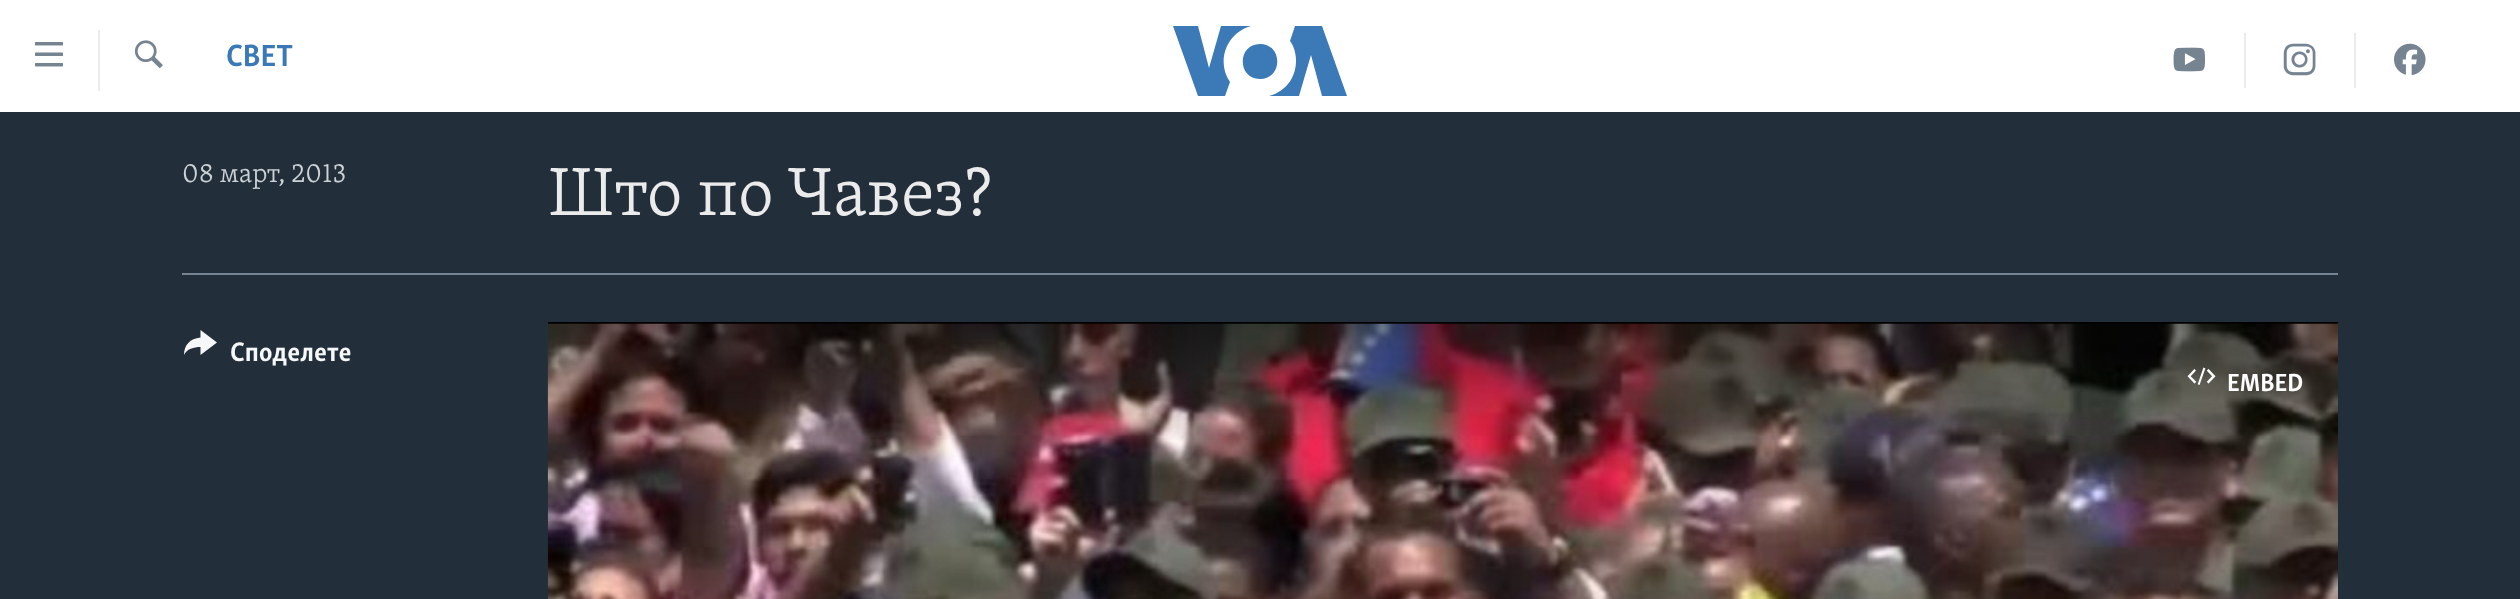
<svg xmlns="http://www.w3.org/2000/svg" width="2520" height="599">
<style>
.a{font:bold 31.5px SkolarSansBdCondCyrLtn;fill:#3a79b7}
.b{font:300 27.5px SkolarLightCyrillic;fill:#cbd1d6}
.c{font:300 70px SkolarLightCyrillic;fill:#ebebeb}
.d{font:bold 27.5px SkolarSansBdCondCyrLtn;fill:#f6f7f8}
.e{font:bold 25.5px SkolarSansBdCondCyrLtn;fill:#fff}
</style>
<defs>
<linearGradient id="g1" gradientUnits="userSpaceOnUse" x1="1443" y1="322" x2="1443" y2="445"><stop offset="0" stop-color="#000" stop-opacity="0.5"/><stop offset="1" stop-color="#000" stop-opacity="0"/></linearGradient>
</defs>
<rect width="100%" height="100%" fill="#fff"/>
<image href="1.png" x="35" y="42" width="28" height="25"/>
<path fill="#ebebeb" d="M98 30h2v61H98z"/>
<image href="2.png" x="134" y="40" width="29" height="29"/>
<path fill="#3b79b7" d="M1230 82l-5 14h-27l-25-70h25l11 42l12-42h30c-25 7-35 36-21 56zm30-38c-23 0-23 35 0 35c23 0 23-35 0-35zm36 17c0 17-11 31-27 35h30l12-41l11 41h25l-25-70h-27l-5 15c4 5 6 13 6 20z"/>
<path fill="#ebebeb" d="M2244 33h2v55H2244z"/>
<image href="3.png" x="2173" y="47" width="32" height="25"/>
<path fill="#ebebeb" d="M2354 33h2v55H2354z"/>
<image href="4.png" x="2283" y="43" width="33" height="33"/>
<image href="5.png" x="2394" y="43" width="32" height="33"/>
<path fill="#222f3a" d="M0 112h2520v487H0z"/>
<path fill="#768492" d="M182 273h2156v2H182z"/>
<path fill="#f6f7f8" d="M184 355c0-10 6-16.5 16.5-17.5v-7.5l16.5 12.5l-16.5 12.5v-8c-6.5 0-14 2-16.5 8z"/>
<path fill="#000" d="M548 322h1790v2H548z"/>
<image href="6.png" x="547" y="323" width="1791" height="276"/>
<path fill="url(#g1)" d="M548 323h1790v117H548z"/>
<image href="7.png" x="2187" y="367" width="29" height="18"/>
<text class="a" x="226" y="66">СВЕТ</text>
<text class="b" x="182" y="182">08 март, 2013</text>
<text class="c" x="548" y="215">Што по Чавез?</text>
<text class="d" x="230" y="361">Споделете</text>
<text class="e" x="2227" y="391">EMBED</text>
</svg>
